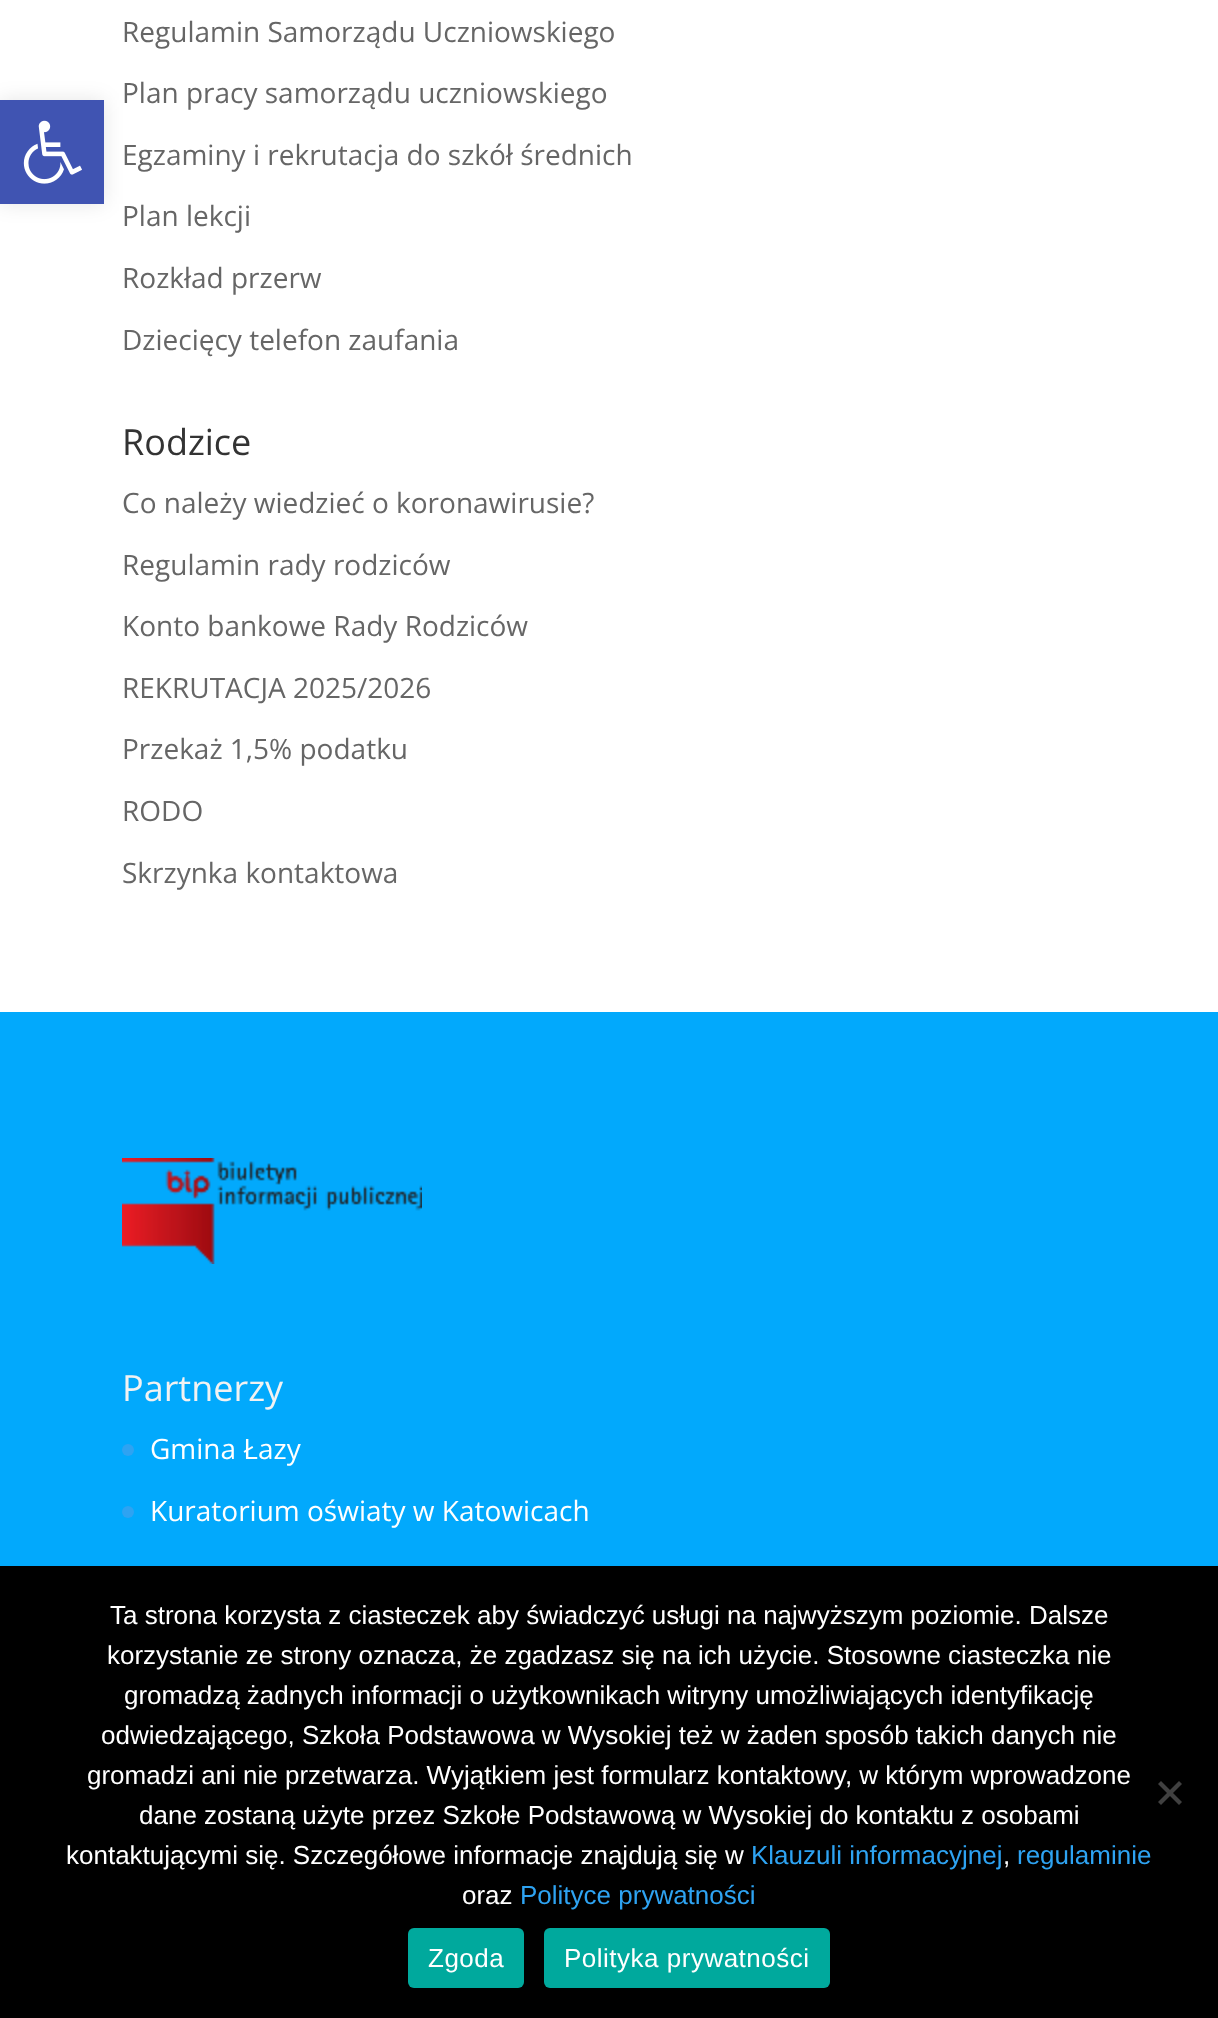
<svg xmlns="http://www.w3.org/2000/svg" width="1218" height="2018">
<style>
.a{font:28px Open Sans;fill:#666}
.b{font:36px Open Sans;fill:#333}
.c{font:36px Open Sans;fill:#f2f2f2}
.d{font:28px Open Sans;fill:#fff}
.e{font:26px Liberation Sans;fill:#fff}
.f{font:26px Liberation Sans;fill:#2ea3f2}
.g{font:26px Liberation Sans;letter-spacing:0.5px;fill:#fff}
</style>
<rect width="100%" height="100%" fill="#fff"/>
<path fill="#0000001a" filter="blur(10px)" d="M0 100h104v104H0z"/>
<path fill="#4054b2" d="M0 100h104v104H0z"/>
<image href="1.png" x="23" y="120" width="59" height="64"/>
<path fill="#02a9fc" d="M0 1012h1218v554H0z"/>
<image href="2.png" x="122" y="1158" width="300" height="106"/>
<circle fill="#2ea3f2" cx="128" cy="1450" r="6"/>
<circle fill="#2ea3f2" cx="128" cy="1512" r="6"/>
<path fill="#000" d="M0 1566h1218v452H0z"/>
<path fill="#404040" d="M1179 1781l3 3l-21 21l-3-3z"/>
<path fill="#404040" d="M1158 1784l3-3l21 21l-3 3z"/>
<rect fill="#00a99d" x="408" y="1928" width="116" height="60" rx="6"/>
<rect fill="#00a99d" x="544" y="1928" width="286" height="60" rx="6"/>
<text class="a" x="122" y="42">Regulamin Samorządu Uczniowskiego</text>
<text class="a" x="122" y="103">Plan pracy samorządu uczniowskiego</text>
<text class="a" x="122" y="165">Egzaminy i rekrutacja do szkół średnich</text>
<text class="a" x="122" y="226">Plan lekcji</text>
<text class="a" x="122" y="288">Rozkład przerw</text>
<text class="a" x="122" y="350">Dziecięcy telefon zaufania</text>
<text class="b" x="122" y="455">Rodzice</text>
<text class="a" x="122" y="513">Co należy wiedzieć o koronawirusie?</text>
<text class="a" x="122" y="575">Regulamin rady rodziców</text>
<text class="a" x="122" y="636">Konto bankowe Rady Rodziców</text>
<text class="a" x="122" y="698">REKRUTACJA 2025/2026</text>
<text class="a" x="122" y="759">Przekaż 1,5% podatku</text>
<text class="a" x="122" y="821">RODO</text>
<text class="a" x="122" y="883">Skrzynka kontaktowa</text>
<text class="c" x="122" y="1401">Partnerzy</text>
<text class="d" x="150" y="1459">Gmina Łazy</text>
<text class="d" x="150" y="1521">Kuratorium oświaty w Katowicach</text>
<text class="e" x="110" y="1624">Ta strona korzysta z ciasteczek aby świadczyć usługi na najwyższym poziomie. Dalsze</text>
<text class="e" x="107" y="1664">korzystanie ze strony oznacza, że zgadzasz się na ich użycie. Stosowne ciasteczka nie</text>
<text class="e" x="124" y="1704">gromadzą żadnych informacji o użytkownikach witryny umożliwiających identyfikację</text>
<text class="e" x="101" y="1744">odwiedzającego, Szkoła Podstawowa w Wysokiej też w żaden sposób takich danych nie</text>
<text class="e" x="87" y="1784">gromadzi ani nie przetwarza. Wyjątkiem jest formularz kontaktowy, w którym wprowadzone</text>
<text class="e" x="139" y="1824">dane zostaną użyte przez Szkołe Podstawową w Wysokiej do kontaktu z osobami</text>
<text class="e" x="66" y="1864">kontaktującymi się. Szczegółowe informacje znajdują się w</text>
<text class="f" x="751" y="1864">Klauzuli informacyjnej</text>
<text class="e" x="1003" y="1864">,</text>
<text class="f" x="1017" y="1864">regulaminie</text>
<text class="e" x="462" y="1904">oraz</text>
<text class="f" x="520" y="1904">Polityce prywatności</text>
<text class="g" x="428" y="1967">Zgoda</text>
<text class="g" x="564" y="1967">Polityka prywatności</text>
</svg>
